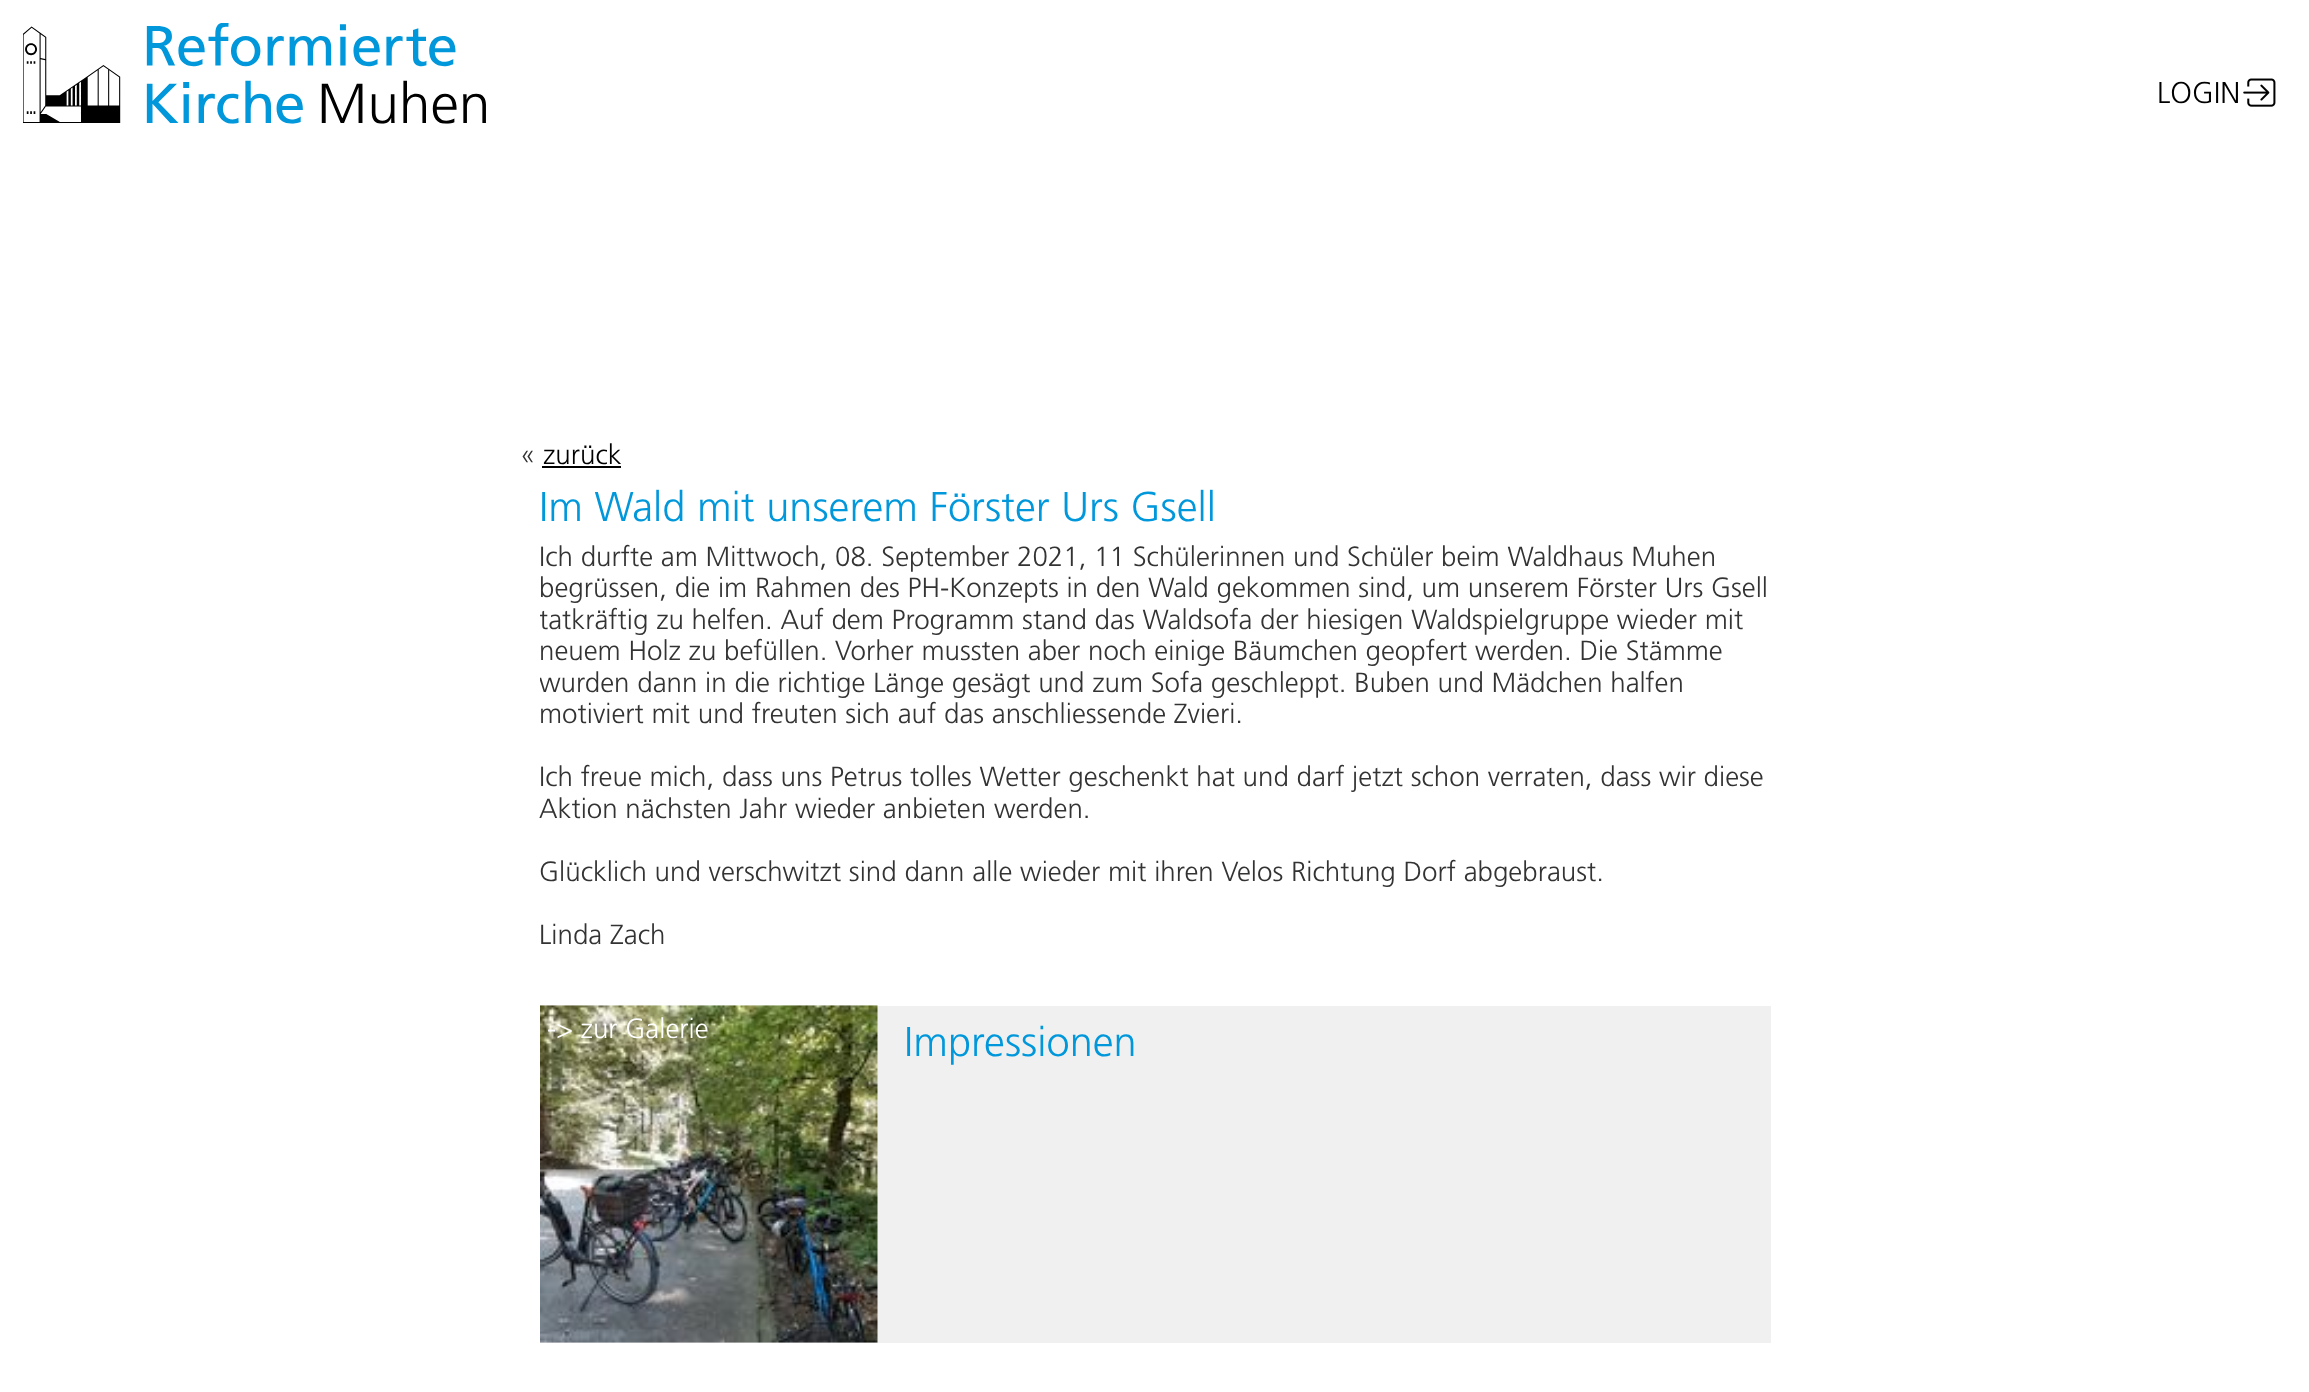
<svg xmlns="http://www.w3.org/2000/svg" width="2309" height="1392">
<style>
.a{font:300 30px 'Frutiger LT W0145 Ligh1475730';fill:#000}
.b{font:300 27.75px 'Frutiger LT W0145 Ligh1475730';fill:#333}
.c{font:300 27.75px 'Frutiger LT W0145 Ligh1475730';fill:#000}
.d{font:300 41.6px 'Frutiger LT W0145 Ligh1475730';fill:#0097db}
.e{font:300 27.75px 'Frutiger LT W0145 Ligh1475730';fill:#fff}
</style>
<defs>
<clipPath id="clip1"><path d="M540 540h1231v466H540z"/></clipPath>
</defs>
<rect width="100%" height="100%" fill="#fff"/>
<image href="1.png" x="23" y="23" width="463" height="101"/>
<image href="2.png" x="2243" y="78" width="33" height="29"/>
<path fill="#000" d="M542 466h79v2H542z"/>
<path fill="#f0f0f0" d="M540 1006h1231v337H540z"/>
<image href="3.png" x="540" y="1005" width="338" height="338"/>
<text class="a" x="2157" y="103">LOGIN</text>
<text class="b" x="520" y="464">«</text>
<text class="c" x="543" y="464">zurück</text>
<text class="d" x="539" y="521">Im Wald mit unserem Förster Urs Gsell</text>
<text class="b" x="539" y="566">Ich durfte am Mittwoch, 08. September 2021, 11 Schülerinnen und Schüler beim Waldhaus Muhen</text>
<text class="b" x="539" y="597">begrüssen, die im Rahmen des PH-Konzepts in den Wald gekommen sind, um unserem Förster Urs Gsell</text>
<g clip-path="url(#clip1)">
<text class="b" x="539" y="629">tatkräftig zu helfen. Auf dem Programm stand das Waldsofa der hiesigen Waldspielgruppe wieder mit</text>
</g>
<text class="b" x="539" y="660">neuem Holz zu befüllen. Vorher mussten aber noch einige Bäumchen geopfert werden. Die Stämme</text>
<g clip-path="url(#clip1)">
<text class="b" x="539" y="692">wurden dann in die richtige Länge gesägt und zum Sofa geschleppt. Buben und Mädchen halfen</text>
</g>
<text class="b" x="539" y="723">motiviert mit und freuten sich auf das anschliessende Zvieri.</text>
<text class="b" x="539" y="786">Ich freue mich, dass uns Petrus tolles Wetter geschenkt hat und darf jetzt schon verraten, dass wir diese</text>
<text class="b" x="539" y="818">Aktion nächsten Jahr wieder anbieten werden.</text>
<text class="b" x="539" y="881">Glücklich und verschwitzt sind dann alle wieder mit ihren Velos Richtung Dorf abgebraust.</text>
<text class="b" x="539" y="944">Linda Zach</text>
<text class="e" x="547" y="1038">-&gt; zur Galerie</text>
<text class="d" x="904" y="1056">Impressionen</text>
</svg>
